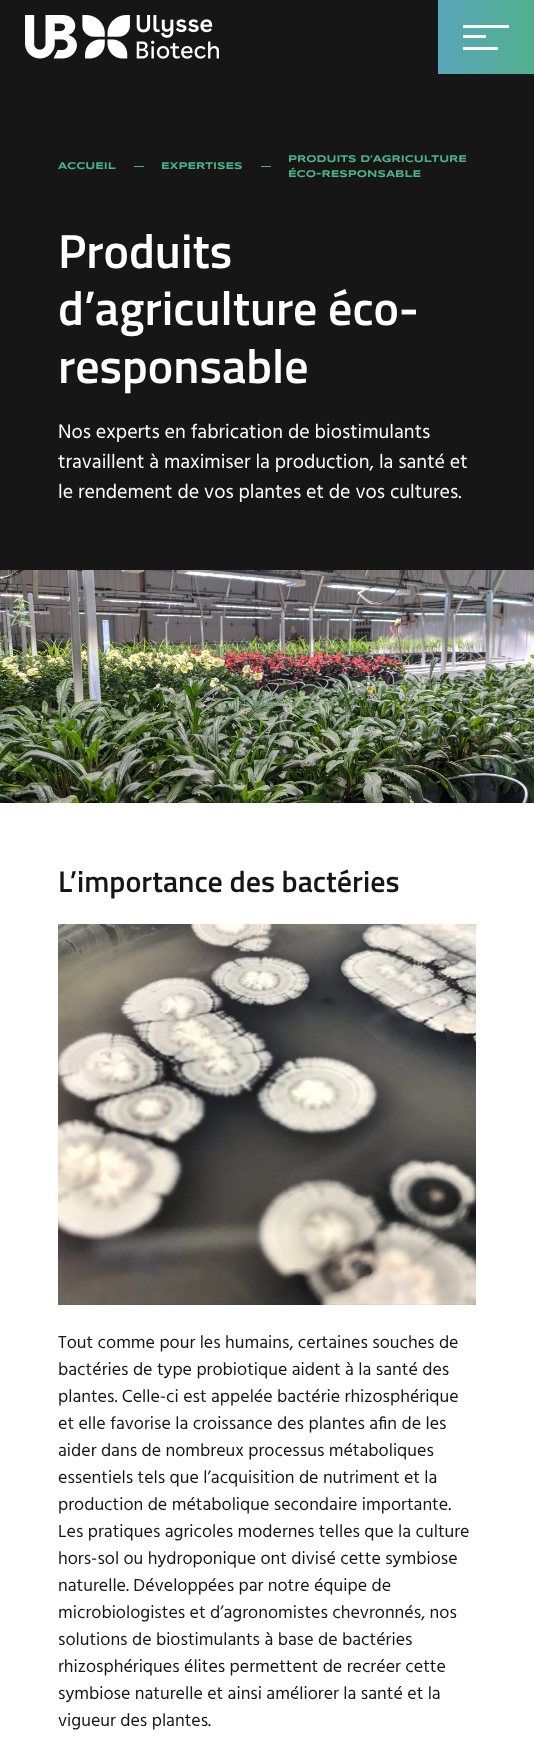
<svg xmlns="http://www.w3.org/2000/svg" width="534" height="1758">
<style>
.a{font:bold 10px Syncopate;fill:#4cb18c}
.b{font:600 48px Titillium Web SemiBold;fill:#fff}
.c{font:20px Hind;fill:#fff}
.d{font:600 30px Titillium Web SemiBold;fill:#161616}
.e{font:18px Hind;fill:#161616}
</style>
<defs>
<linearGradient id="g1" gradientUnits="userSpaceOnUse" x1="438" y1="37" x2="534" y2="37"><stop offset="0" stop-color="#5aa5ba"/><stop offset="1" stop-color="#50b08d"/></linearGradient>
</defs>
<rect width="100%" height="100%" fill="#fff"/>
<path fill="#161616" d="M0 0h438v74H0z"/>
<image href="1.png" x="25" y="15" width="194" height="44"/>
<path fill="url(#g1)" d="M438 0h96v74H438z"/>
<path fill="#fff" d="M463 25h46v3H463z"/>
<path fill="#fff" d="M463 35h23v3H463z"/>
<path fill="#fff" d="M463 47h35v3H463z"/>
<path fill="#161616" d="M0 74h534v496H0z"/>
<path fill="#4cb18c" d="M134 166h10v1H134z"/>
<path fill="#4cb18c" d="M261 166h10v1H261z"/>
<image href="2.png" x="0" y="570" width="534" height="233"/>
<image href="3.png" x="58" y="924" width="418" height="381"/>
<text class="a" x="58" y="169">ACCUEIL</text>
<text class="a" x="161" y="169">EXPERTISES</text>
<text class="a" x="288" y="162">PRODUITS D’AGRICULTURE</text>
<text class="a" x="288" y="177">ÉCO-RESPONSABLE</text>
<text class="b" x="58" y="268">Produits</text>
<text class="b" x="58" y="325">d’agriculture éco-</text>
<text class="b" x="58" y="383">responsable</text>
<text class="c" x="58" y="438">Nos experts en fabrication de biostimulants</text>
<text class="c" x="58" y="468">travaillent à maximiser la production, la santé et</text>
<text class="c" x="58" y="498">le rendement de vos plantes et de vos cultures.</text>
<text class="d" x="58" y="892">L’importance des bactéries</text>
<text class="e" x="58" y="1348">Tout comme pour les humains, certaines souches de</text>
<text class="e" x="58" y="1375">bactéries de type probiotique aident à la santé des</text>
<text class="e" x="58" y="1402">plantes. Celle-ci est appelée bactérie rhizosphérique</text>
<text class="e" x="58" y="1429">et elle favorise la croissance des plantes afin de les</text>
<text class="e" x="58" y="1456">aider dans de nombreux processus métaboliques</text>
<text class="e" x="58" y="1483">essentiels tels que l’acquisition de nutriment et la</text>
<text class="e" x="58" y="1510">production de métabolique secondaire importante.</text>
<text class="e" x="58" y="1537">Les pratiques agricoles modernes telles que la culture</text>
<text class="e" x="58" y="1564">hors-sol ou hydroponique ont divisé cette symbiose</text>
<text class="e" x="58" y="1591">naturelle. Développées par notre équipe de</text>
<text class="e" x="58" y="1618">microbiologistes et d’agronomistes chevronnés, nos</text>
<text class="e" x="58" y="1645">solutions de biostimulants à base de bactéries</text>
<text class="e" x="58" y="1672">rhizosphériques élites permettent de recréer cette</text>
<text class="e" x="58" y="1699">symbiose naturelle et ainsi améliorer la santé et la</text>
<text class="e" x="58" y="1726">vigueur des plantes.</text>
</svg>
